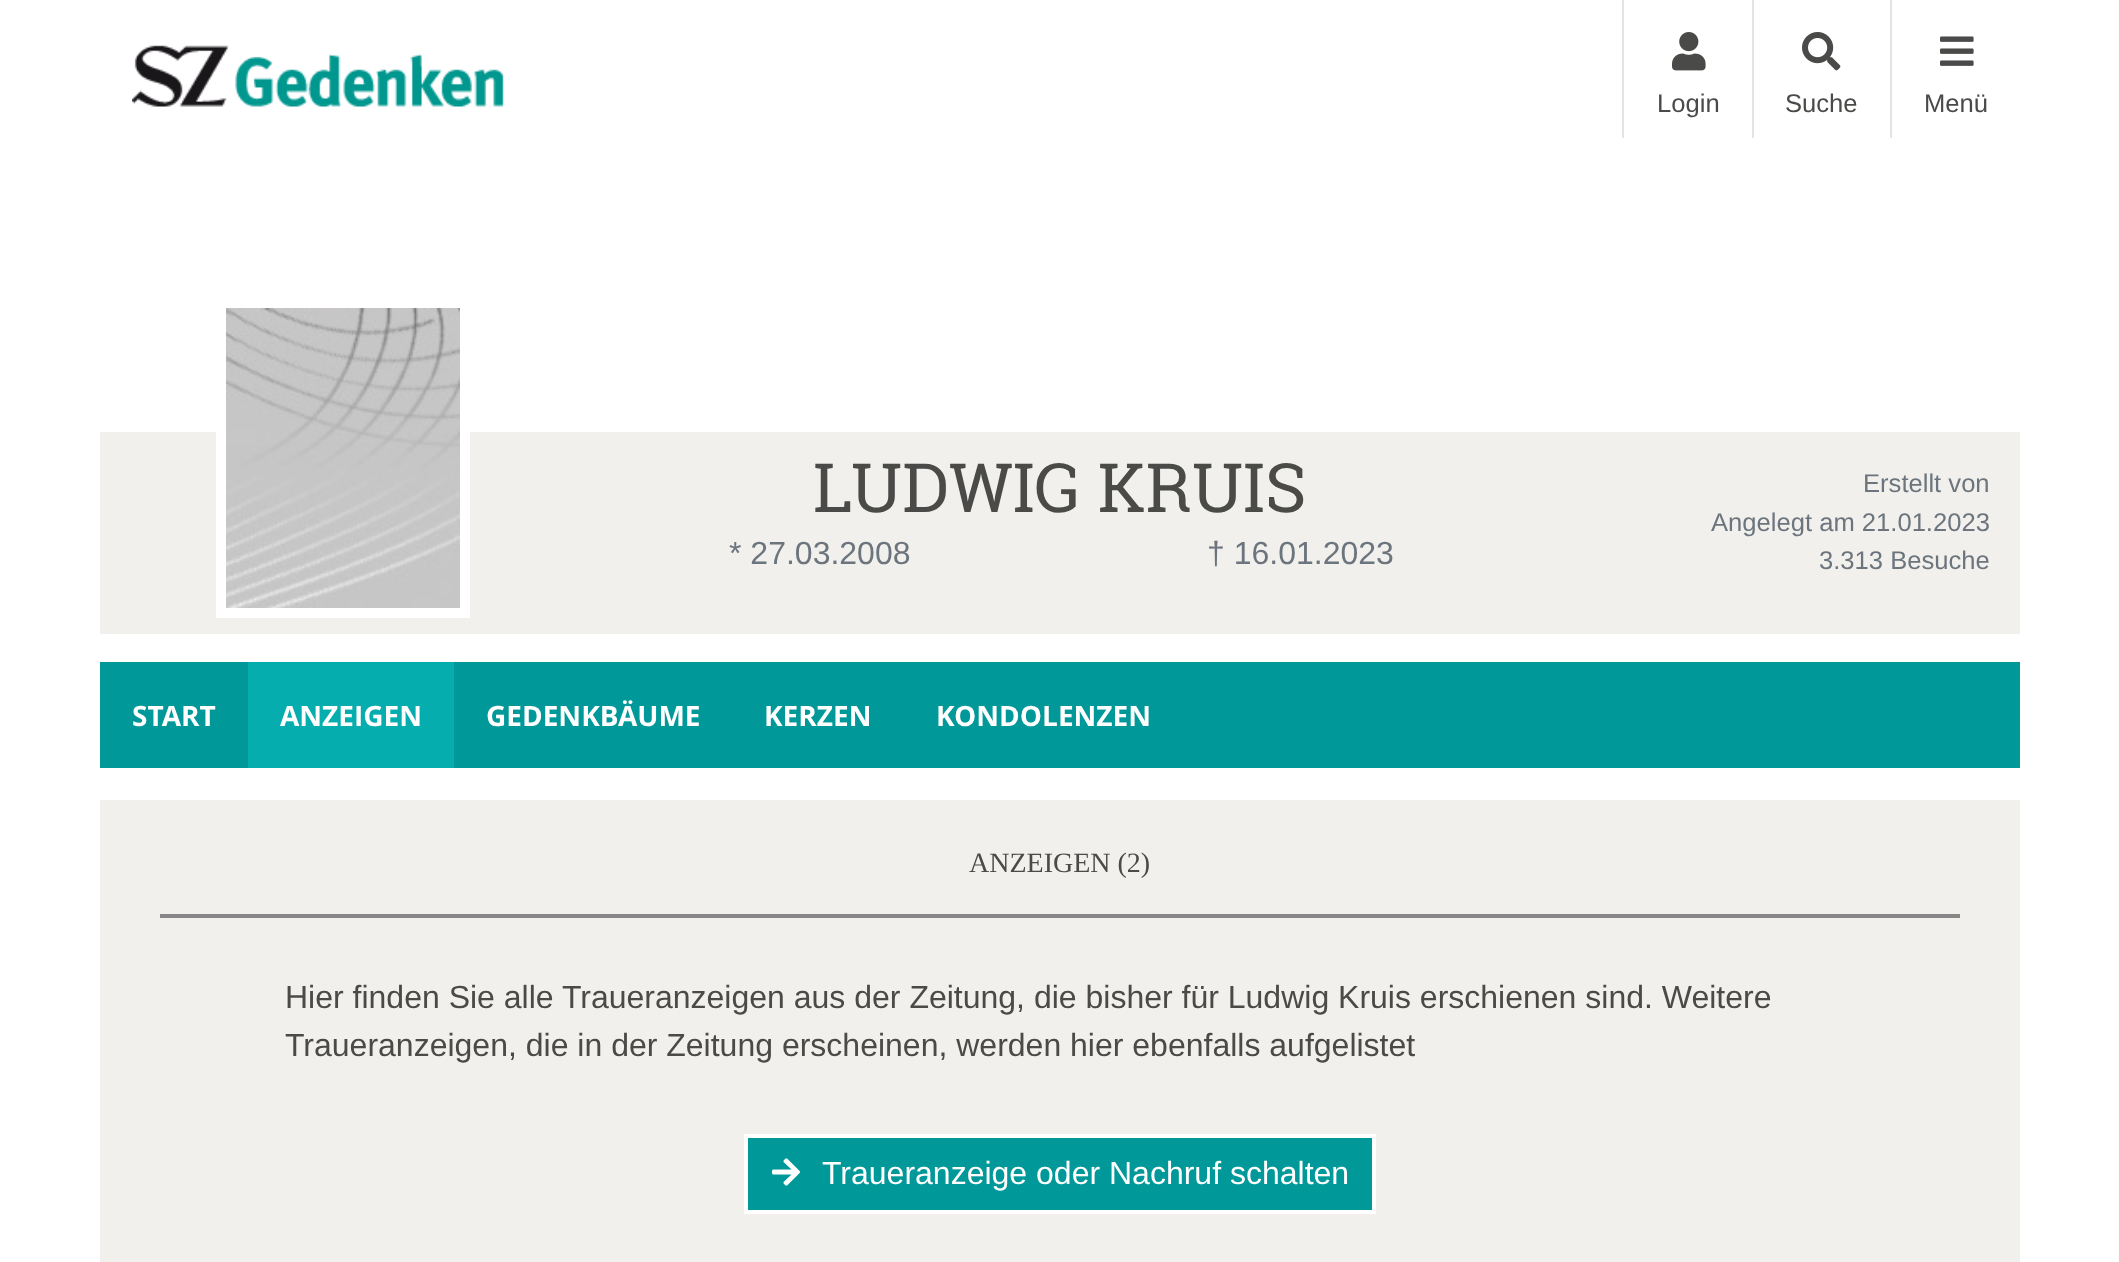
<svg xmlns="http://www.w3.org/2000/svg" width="2119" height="1262">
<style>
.a{font:25.6px Liberation Sans;fill:#4a4a49}
.b{font:68px Roboto Slab;fill:#4a4a49}
.c{font:32px Liberation Sans;fill:#6c757d}
.d{font:25.6px Liberation Sans;fill:#6c757d}
.e{font:bold 28px Open Sans;fill:#fff}
.f{font:28px Liberation Serif;fill:#4a4a49}
.g{font:32px Liberation Sans;fill:#4a4a49}
.h{font:32px Liberation Sans;fill:#fff}
</style>
<rect width="100%" height="100%" fill="#fff"/>
<image href="1.png" x="132" y="45" width="372" height="62"/>
<path fill="#e4e4e4" d="M1622 0h2v138H1622z"/>
<image href="2.png" x="1672" y="32" width="34" height="39"/>
<path fill="#e4e4e4" d="M1752 0h2v138H1752z"/>
<image href="3.png" x="1802" y="32" width="39" height="39"/>
<path fill="#e4e4e4" d="M1890 0h2v138H1890z"/>
<image href="4.png" x="1940" y="36" width="34" height="30"/>
<path fill="#f1f0ec" d="M100 432h1920v202H100z"/>
<path fill="none" stroke="#fff" stroke-width="10" d="M221 303h244v310H221z"/>
<image href="5.png" x="226" y="308" width="234" height="300"/>
<path fill="#009899" d="M100 662h1920v106H100z"/>
<path fill="#06adae" d="M248 662h206v106H248z"/>
<path fill="#f1f0ec" d="M100 800h1920v462H100z"/>
<path fill="#878787" d="M160 914h1800v4H160z"/>
<path fill="#009899" stroke="#fff" stroke-width="4" d="M746 1136h628v76H746z"/>
<image href="6.png" x="772" y="1158" width="28" height="28"/>
<text class="a" x="1657" y="112">Login</text>
<text class="a" x="1785" y="112">Suche</text>
<text class="a" x="1924" y="112">Menü</text>
<text class="b" x="813" y="512">LUDWIG KRUIS</text>
<text class="c" x="729" y="564">* 27.03.2008</text>
<text class="c" x="1207" y="564">† 16.01.2023</text>
<text class="d" x="1863" y="492">Erstellt von</text>
<text class="d" x="1711" y="531">Angelegt am 21.01.2023</text>
<text class="d" x="1819" y="569">3.313 Besuche</text>
<text class="e" x="132" y="726">START</text>
<text class="e" x="280" y="726">ANZEIGEN</text>
<text class="e" x="486" y="726">GEDENKBÄUME</text>
<text class="e" x="764" y="726">KERZEN</text>
<text class="e" x="936" y="726">KONDOLENZEN</text>
<text class="f" x="969" y="872">ANZEIGEN (2)</text>
<text class="g" x="285" y="1008">Hier finden Sie alle Traueranzeigen aus der Zeitung, die bisher für Ludwig Kruis erschienen sind. Weitere</text>
<text class="g" x="285" y="1056">Traueranzeigen, die in der Zeitung erscheinen, werden hier ebenfalls aufgelistet</text>
<text class="h" x="822" y="1184">Traueranzeige oder Nachruf schalten</text>
</svg>
